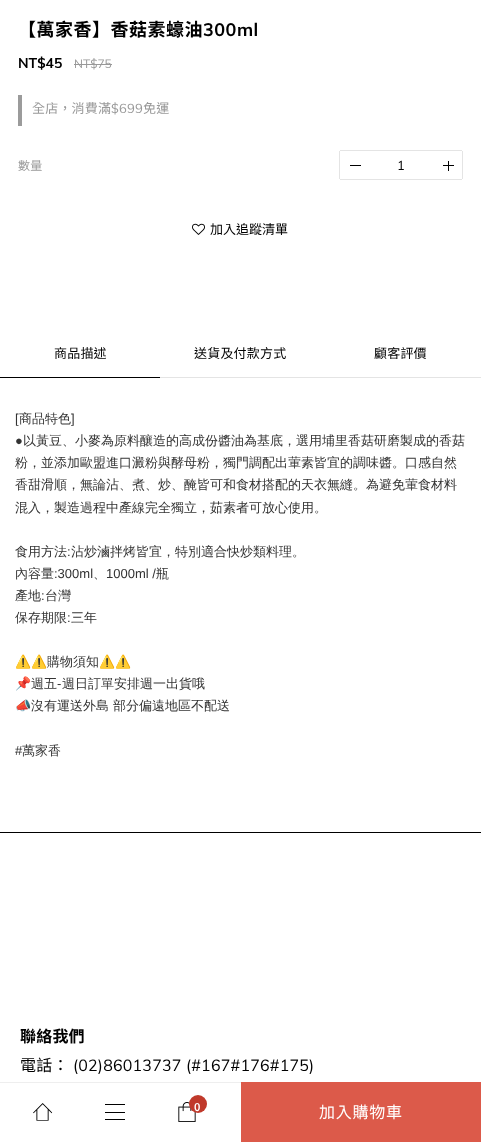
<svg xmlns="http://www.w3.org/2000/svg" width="481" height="1142">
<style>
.a{font:bold 18px Noto Sans TC;letter-spacing:0.5px;fill:#000}
.b{font:bold 18px Muli;letter-spacing:0.5px;fill:#000}
.c{font:bold 14px Muli;fill:#000}
.d{font:12px Muli;fill:#999}
.e{font:13px Noto Sans TC;letter-spacing:0.2px;fill:#999}
.f{font:13px Muli;letter-spacing:0.2px;fill:#999}
.g{font:12px Noto Sans TC;letter-spacing:0.2px;fill:#999}
.h{font:13px Muli;fill:#000}
.i{font:13px Noto Sans TC;fill:#000}
.j{font:16px Noto Sans TC;letter-spacing:0.75px;fill:#fff}
.k{font:13px Noto Sans TC;letter-spacing:0.2px;fill:#000}
.l{font:13px Liberation Sans;fill:#333}
.m{font:500 13px WenQuanYi Zen Hei;fill:#333}
.n{font:13px Noto Color Emoji;fill:#333}
.o{font:bold 16px Noto Sans TC;letter-spacing:0.2px;fill:#000}
.p{font:16px Noto Sans TC;letter-spacing:0.2px;fill:#000}
.q{font:16px Muli;letter-spacing:0.2px;fill:#000}
.r{font:600 11px Noto Sans TC;fill:#fff}
</style>
<rect width="100%" height="100%" fill="#fff"/>
<path fill="#999" d="M74 64h38v1H74z"/>
<path fill="#9b9b9b" d="M18 95h4v31H18z"/>
<path fill="#e4e4e4" d="M340 150h98v1H340z"/>
<path fill="#e4e4e4" d="M340 179h98v1H340z"/>
<path fill="#e4e4e4" d="M339 151h1v28H339z"/>
<path fill="#000" d="M350 165h11v1H350z"/>
<path fill="#fff" d="M433 150h28c1 0 2 1 2 2v26c0 1-1 2-2 2h-28z"/>
<path fill="#e4e4e4" d="M433 150h29v1H433z"/>
<path fill="#e4e4e4" d="M462 151h1v28H462z"/>
<path fill="#e4e4e4" d="M433 179h29v1H433z"/>
<path fill="#000" d="M443 165h11v1H443z"/>
<path fill="#000" d="M448 161h1v10H448z"/>
<image href="1.png" x="192" y="223" width="13" height="12"/>
<path fill="#dc5a4a" d="M241 1082h240v60H241z"/>
<path fill="#e4e4e4" d="M160 377h321v1H160z"/>
<path fill="#000" d="M0 377h160v1H0z"/>
<path fill="#000" d="M0 832h481v1H0z"/>
<path fill="#eee" d="M0 1082h241v1H0z"/>
<image href="2.png" x="33" y="1103" width="20" height="18"/>
<path fill="#000" d="M105 1104h20v1H105z"/>
<path fill="#000" d="M105 1112h20v1H105z"/>
<path fill="#000" d="M105 1119h20v1H105z"/>
<image href="3.png" x="178" y="1102" width="18" height="20"/>
<circle fill="#c0392b" cx="198" cy="1104" r="9"/>
<text class="a" x="18" y="36">【萬家香】香菇素蠔油</text>
<text class="b" x="203" y="36">300ml</text>
<text class="c" x="18" y="68">NT$45</text>
<text class="d" x="74" y="68">NT$75</text>
<text class="e" x="32" y="113">全店，消費滿</text>
<text class="f" x="111" y="113">$699</text>
<text class="e" x="143" y="113">免運</text>
<text class="g" x="18" y="170">數量</text>
<text class="h" x="397" y="170">1</text>
<text class="i" x="210" y="234">加入追蹤清單</text>
<text class="j" x="319" y="1118">加入購物車</text>
<text class="k" x="54" y="358">商品描述</text>
<text class="k" x="194" y="358">送貨及付款方式</text>
<text class="k" x="374" y="358">顧客評價</text>
<text class="l" x="15" y="423">[</text>
<text class="m" x="19" y="423">商品特色</text>
<text class="l" x="71" y="423">]</text>
<text class="l" x="15" y="445">●</text>
<text class="m" x="23" y="445">以黃豆、小麥為原料釀造的高成份醬油為基底，選用埔里香菇研磨製成的香菇</text>
<text class="m" x="15" y="467">粉，並添加歐盟進口澱粉與酵母粉，獨門調配出葷素皆宜的調味醬。口感自然</text>
<text class="m" x="15" y="489">香甜滑順，無論沾、煮、炒、醃皆可和食材搭配的天衣無縫。為避免葷食材料</text>
<text class="m" x="15" y="512">混入，製造過程中產線完全獨立，茹素者可放心使用。</text>
<text class="m" x="15" y="556">食用方法 沾炒滷拌烤皆宜，特別適合快炒類料理。</text>
<text class="l" x="67" y="556">:</text>
<text class="m" x="15" y="578">內容量</text>
<text class="l" x="54" y="578">:300ml</text>
<text class="m" x="93" y="578">、</text>
<text class="l" x="106" y="578">1000ml /</text>
<text class="m" x="156" y="578">瓶</text>
<text class="m" x="15" y="600">產地 台灣</text>
<text class="l" x="41" y="600">:</text>
<text class="m" x="15" y="622">保存期限 三年</text>
<text class="l" x="67" y="622">:</text>
<text class="n" x="15" y="666">⚠️⚠️</text>
<text class="m" x="47" y="666">購物須知</text>
<text class="n" x="99" y="666">⚠️⚠️</text>
<text class="n" x="15" y="688">📌</text>
<text class="m" x="31" y="688">週五</text>
<text class="l" x="57" y="688">-</text>
<text class="m" x="62" y="688">週日訂單安排週一出貨哦</text>
<text class="n" x="15" y="710">📣</text>
<text class="m" x="31" y="710">沒有運送外島 部分偏遠地區不配送</text>
<text class="l" x="15" y="755">#</text>
<text class="m" x="22" y="755">萬家香</text>
<text class="o" x="20" y="1042">聯絡我們</text>
<text class="p" x="20" y="1071">電話：</text>
<text class="q" x="73" y="1071">(02)86013737 (#167#176#175)</text>
<text class="r" x="194" y="1111">0</text>
</svg>
